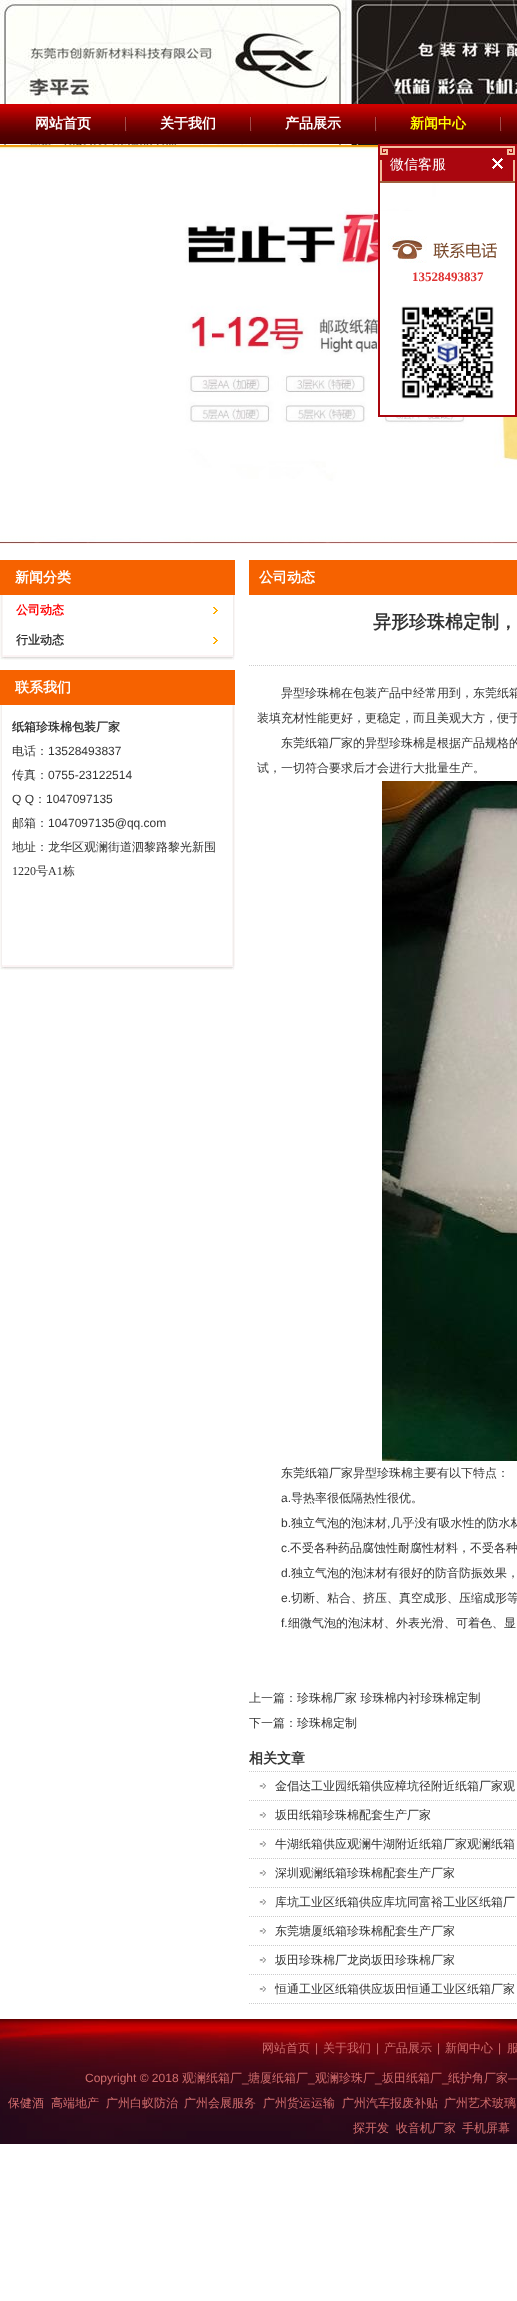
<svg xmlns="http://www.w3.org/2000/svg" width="517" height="2301">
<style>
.a{font:bold 14px WenQuanYi Zen Hei;fill:#fff}
.b{font:bold 14px WenQuanYi Zen Hei;fill:#ff0}
.c{font:500 14px WenQuanYi Zen Hei;fill:#fff}
.d{font:bold 13px Liberation Serif;fill:#df3232}
.e{font:bold 12px WenQuanYi Zen Hei;fill:#f00}
.f{font:bold 12px WenQuanYi Zen Hei;fill:#333}
.g{font:500 12px WenQuanYi Zen Hei;fill:#333}
.h{font:12px Liberation Sans;fill:#333}
.i{font:12px Liberation Serif;fill:#333}
.j{font:bold 18px WenQuanYi Zen Hei;fill:#333}
.k{font:bold 14px WenQuanYi Zen Hei;fill:#333}
.l{font:500 12px WenQuanYi Zen Hei;fill:#d16d6d}
.m{font:12px Liberation Sans;fill:#d16d6d}
</style>
<rect width="100%" height="100%" fill="#fff"/>
<image href="1.png" x="0" y="0" width="517" height="145"/>
<image href="2.png" x="0" y="104" width="517" height="40"/>
<image href="3.png" x="125" y="112" width="2" height="23"/>
<image href="3.png" x="250" y="112" width="2" height="23"/>
<image href="3.png" x="375" y="112" width="2" height="23"/>
<image href="3.png" x="500" y="112" width="2" height="23"/>
<image href="4.png" x="0" y="145" width="517" height="399"/>
<path fill="#fff" d="M380 211h135v204H380z"/>
<path fill="none" stroke="#a9060e" stroke-width="2" d="M379 145h137v271H379z"/>
<image href="5.png" x="380" y="146" width="135" height="35"/>
<path fill="#a0603d" d="M380 181h135v2H380z"/>
<image href="6.png" x="492" y="158" width="11" height="11"/>
<image href="7.png" x="388" y="236" width="109" height="27"/>
<image href="8.png" x="401" y="306" width="93" height="93"/>
<path fill="#f66200" d="M0 560h235v35H0z"/>
<image href="9.png" x="0" y="595" width="235" height="60"/>
<path fill="#fff" d="M3 595h230v60H3z"/>
<image href="10.png" x="213" y="607" width="5" height="7"/>
<image href="10.png" x="213" y="637" width="5" height="7"/>
<image href="11.png" x="0" y="655" width="235" height="5"/>
<path fill="#f66200" d="M0 670h235v35H0z"/>
<image href="12.png" x="0" y="705" width="235" height="260"/>
<path fill="#fff" d="M2 705h230v260H2z"/>
<image href="11.png" x="0" y="965" width="235" height="5"/>
<path fill="#f66200" d="M249 560h268v35H249z"/>
<path fill="none" stroke="#ccc" stroke-dasharray="1 1" d="M249 665.5h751"/>
<image href="13.png" x="382" y="781" width="135" height="680"/>
<path fill="none" stroke="#ccc" stroke-dasharray="1 1" d="M249 1771.5h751"/>
<image href="14.png" x="259" y="1783" width="7" height="6"/>
<path fill="none" stroke="#ccc" stroke-dasharray="1 1" d="M249 1800.5h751"/>
<image href="14.png" x="259" y="1812" width="7" height="6"/>
<path fill="none" stroke="#ccc" stroke-dasharray="1 1" d="M249 1829.5h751"/>
<image href="14.png" x="259" y="1841" width="7" height="6"/>
<path fill="none" stroke="#ccc" stroke-dasharray="1 1" d="M249 1858.5h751"/>
<image href="14.png" x="259" y="1870" width="7" height="6"/>
<path fill="none" stroke="#ccc" stroke-dasharray="1 1" d="M249 1887.5h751"/>
<image href="14.png" x="259" y="1899" width="7" height="6"/>
<path fill="none" stroke="#ccc" stroke-dasharray="1 1" d="M249 1916.5h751"/>
<image href="14.png" x="259" y="1928" width="7" height="6"/>
<path fill="none" stroke="#ccc" stroke-dasharray="1 1" d="M249 1945.5h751"/>
<image href="14.png" x="259" y="1957" width="7" height="6"/>
<path fill="none" stroke="#ccc" stroke-dasharray="1 1" d="M249 1974.5h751"/>
<image href="14.png" x="259" y="1986" width="7" height="6"/>
<path fill="none" stroke="#ccc" stroke-dasharray="1 1" d="M249 2003.5h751"/>
<image href="15.png" x="0" y="2019" width="517" height="125"/>
<text class="a" x="35" y="128">网站首页</text>
<text class="a" x="160" y="128">关于我们</text>
<text class="a" x="285" y="128">产品展示</text>
<text class="b" x="410" y="128">新闻中心</text>
<text class="c" x="390" y="169">微信客服</text>
<text class="d" x="412" y="281">13528493837</text>
<text class="a" x="15" y="582">新闻分类</text>
<text class="e" x="16" y="614">公司动态</text>
<text class="f" x="16" y="644">行业动态</text>
<text class="a" x="15" y="692">联系我们</text>
<text class="f" x="12" y="731">纸箱珍珠棉包装厂家</text>
<text class="g" x="12" y="755">电话：</text>
<text class="h" x="48" y="755">13528493837</text>
<text class="g" x="12" y="779">传真：</text>
<text class="h" x="48" y="779">0755-23122514</text>
<text class="h" x="12" y="803">Q Q</text>
<text class="g" x="34" y="803">：</text>
<text class="h" x="46" y="803">1047097135</text>
<text class="g" x="12" y="827">邮箱：</text>
<text class="h" x="48" y="827">1047097135@qq.com</text>
<text class="g" x="12" y="851">地址：龙华区观澜街道泗黎路黎光新围</text>
<text class="i" x="12" y="875">1220</text>
<text class="g" x="36" y="875">号</text>
<text class="i" x="48" y="875">A1</text>
<text class="g" x="63" y="875">栋</text>
<text class="a" x="259" y="582">公司动态</text>
<text class="j" x="373" y="628">异形珍珠棉定制，</text>
<text class="g" x="281" y="697">异型珍珠棉在包装产品中经常用到，东莞纸箱</text>
<text class="g" x="257" y="722">装填充材性能更好，更稳定，而且美观大方，便于</text>
<text class="g" x="281" y="747">东莞纸箱厂家的异型珍珠棉是根据产品规格的</text>
<text class="g" x="257" y="772">试，一切符合要求后才会进行大批量生产。</text>
<text class="g" x="281" y="1477">东莞纸箱厂家异型珍珠棉主要有以下特点：</text>
<text class="h" x="281" y="1502">a.</text>
<text class="g" x="291" y="1502">导热率很低隔热性很优。</text>
<text class="h" x="281" y="1527">b.</text>
<text class="g" x="291" y="1527">独立气泡的泡沫材 几乎没有吸水性的防水材</text>
<text class="h" x="387" y="1527">,</text>
<text class="h" x="281" y="1552">c.</text>
<text class="g" x="290" y="1552">不受各种药品腐蚀性耐腐性材料，不受各种</text>
<text class="h" x="281" y="1577">d.</text>
<text class="g" x="291" y="1577">独立气泡的泡沫材有很好的防音防振效果，</text>
<text class="h" x="281" y="1602">e.</text>
<text class="g" x="291" y="1602">切断、粘合、挤压、真空成形、压缩成形等</text>
<text class="h" x="281" y="1627">f.</text>
<text class="g" x="288" y="1627">细微气泡的泡沫材、外表光滑、可着色、显</text>
<text class="g" x="249" y="1702">上一篇：</text>
<text class="g" x="297" y="1702">珍珠棉厂家 珍珠棉内衬珍珠棉定制</text>
<text class="g" x="249" y="1727">下一篇：珍珠棉定制</text>
<text class="k" x="249" y="1763">相关文章</text>
<text class="g" x="275" y="1790">金倡达工业园纸箱供应樟坑径附近纸箱厂家观</text>
<text class="g" x="275" y="1819">坂田纸箱珍珠棉配套生产厂家</text>
<text class="g" x="275" y="1848">牛湖纸箱供应观澜牛湖附近纸箱厂家观澜纸箱</text>
<text class="g" x="275" y="1877">深圳观澜纸箱珍珠棉配套生产厂家</text>
<text class="g" x="275" y="1906">库坑工业区纸箱供应库坑同富裕工业区纸箱厂</text>
<text class="g" x="275" y="1935">东莞塘厦纸箱珍珠棉配套生产厂家</text>
<text class="g" x="275" y="1964">坂田珍珠棉厂龙岗坂田珍珠棉厂家</text>
<text class="g" x="275" y="1993">恒通工业区纸箱供应坂田恒通工业区纸箱厂家</text>
<text class="l" x="262" y="2052">网站首页</text>
<text class="m" x="315" y="2052">|</text>
<text class="l" x="323" y="2052">关于我们</text>
<text class="m" x="376" y="2052">|</text>
<text class="l" x="384" y="2052">产品展示</text>
<text class="m" x="437" y="2052">|</text>
<text class="l" x="445" y="2052">新闻中心</text>
<text class="m" x="498" y="2052">|</text>
<text class="l" x="507" y="2052">服</text>
<text class="m" x="85" y="2082">Copyright © 2018</text>
<text class="l" x="182" y="2082">观澜纸箱厂</text>
<text class="m" x="508" y="2082">—</text>
<text class="m" x="242" y="2082">_</text>
<text class="l" x="248" y="2082">塘厦纸箱厂</text>
<text class="m" x="308" y="2082">_</text>
<text class="l" x="315" y="2082">观澜珍珠厂</text>
<text class="m" x="375" y="2082">_</text>
<text class="l" x="382" y="2082">坂田纸箱厂</text>
<text class="m" x="442" y="2082">_</text>
<text class="l" x="448" y="2082">纸护角厂家</text>
<text class="l" x="8" y="2107">保健酒</text>
<text class="l" x="51" y="2107">高端地产</text>
<text class="l" x="106" y="2107">广州白蚁防治</text>
<text class="l" x="184" y="2107">广州会展服务</text>
<text class="l" x="263" y="2107">广州货运运输</text>
<text class="l" x="342" y="2107">广州汽车报废补贴</text>
<text class="l" x="444" y="2107">广州艺术玻璃</text>
<text class="l" x="353" y="2132">探开发</text>
<text class="l" x="396" y="2132">收音机厂家</text>
<text class="l" x="462" y="2132">手机屏幕</text>
</svg>
